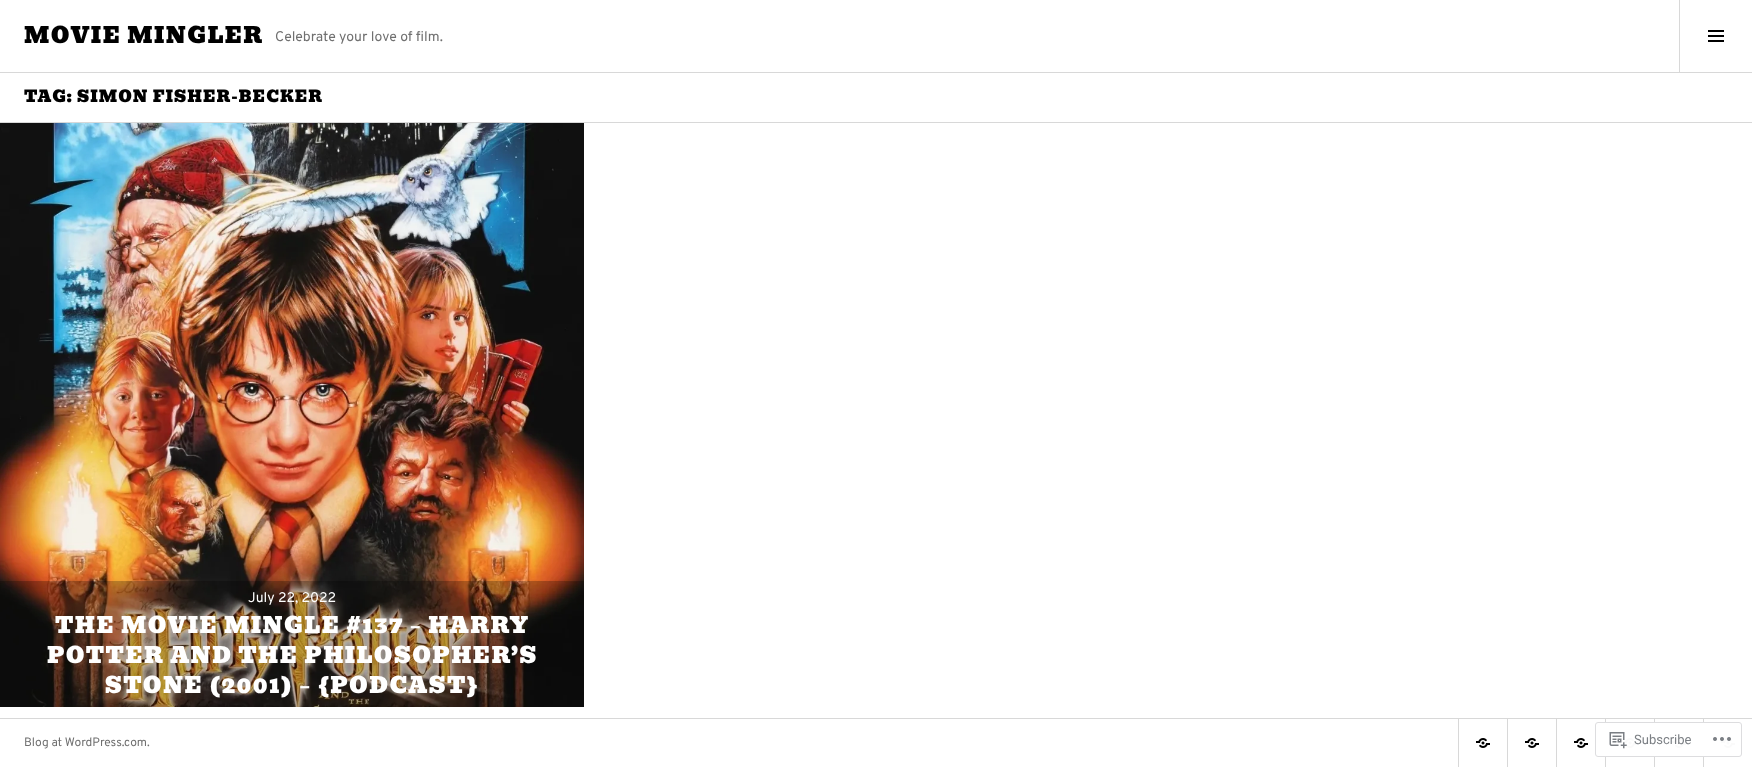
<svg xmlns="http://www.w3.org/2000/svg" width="1752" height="767">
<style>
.a{font:22px Bevan;letter-spacing:1.4px;fill:#000}
.b{font:14px Overpass;fill:#707070}
.c{font:16px Bevan;letter-spacing:1px;fill:#000}
.d{font:14px Overpass;fill:#fff}
.e{font:22px Bevan;letter-spacing:1.4px;fill:#fff}
.f{font:12px Overpass;fill:#707070}
.g{font:13px Roboto;fill:#7b7f84}
</style>
<defs>
<clipPath id="clip1"><path d="M0 719h1752v48H0z"/></clipPath>
</defs>
<rect width="100%" height="100%" fill="#fff"/>
<path fill="#d8d8d8" d="M0 72h1752v1H0z"/>
<path fill="#d8d8d8" d="M1679 0h1v72H1679z"/>
<image href="1.png" x="1708" y="30" width="16" height="12"/>
<path fill="#d8d8d8" d="M0 122h1752v1H0z"/>
<image href="2.png" x="0" y="123" width="584" height="584"/>
<path fill="#00000040" d="M0 581h584v126H0z"/>
<path fill="#d8d8d8" d="M0 718h1752v1H0z"/>
<g clip-path="url(#clip1)">
<path fill="none" stroke="#d8d8d8" d="M1458.5 718.5h49v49H1458.5z"/>
</g>
<image href="3.png" x="1476" y="738" width="14" height="10"/>
<g clip-path="url(#clip1)">
<path fill="none" stroke="#d8d8d8" d="M1507.5 718.5h49v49H1507.5z"/>
</g>
<image href="3.png" x="1525" y="738" width="14" height="10"/>
<g clip-path="url(#clip1)">
<path fill="none" stroke="#d8d8d8" d="M1556.5 718.5h49v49H1556.5z"/>
</g>
<image href="3.png" x="1574" y="738" width="14" height="10"/>
<g clip-path="url(#clip1)">
<path fill="none" stroke="#d8d8d8" d="M1605.5 718.5h49v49H1605.5z"/>
</g>
<image href="3.png" x="1623" y="738" width="14" height="10"/>
<g clip-path="url(#clip1)">
<path fill="none" stroke="#d8d8d8" d="M1654.5 718.5h49v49H1654.5z"/>
</g>
<image href="3.png" x="1672" y="738" width="14" height="10"/>
<image href="3.png" x="1721" y="738" width="14" height="10"/>
<rect fill="#fffffffa" stroke="#dddddf" x="1595.5" y="722.5" width="146" height="34" rx="2.5"/>
<image href="4.png" x="1609" y="732" width="18" height="17"/>
<image href="5.png" x="1713" y="737" width="18" height="4"/>
<text class="a" x="24" y="43">MOVIE MINGLER</text>
<text class="b" x="275" y="41">Celebrate your love of film.</text>
<text class="c" x="24" y="102">TAG: SIMON FISHER-BECKER</text>
<text class="d" x="248" y="602">July 22, 2022</text>
<text class="e" x="55" y="633">THE MOVIE MINGLE #137 – HARRY</text>
<text class="e" x="47" y="663">POTTER AND THE PHILOSOPHER’S</text>
<text class="e" x="105" y="693">STONE (2001) – {PODCAST}</text>
<text class="f" x="24" y="746">Blog at WordPress.com.</text>
<text class="g" x="1634" y="744">Subscribe</text>
</svg>
